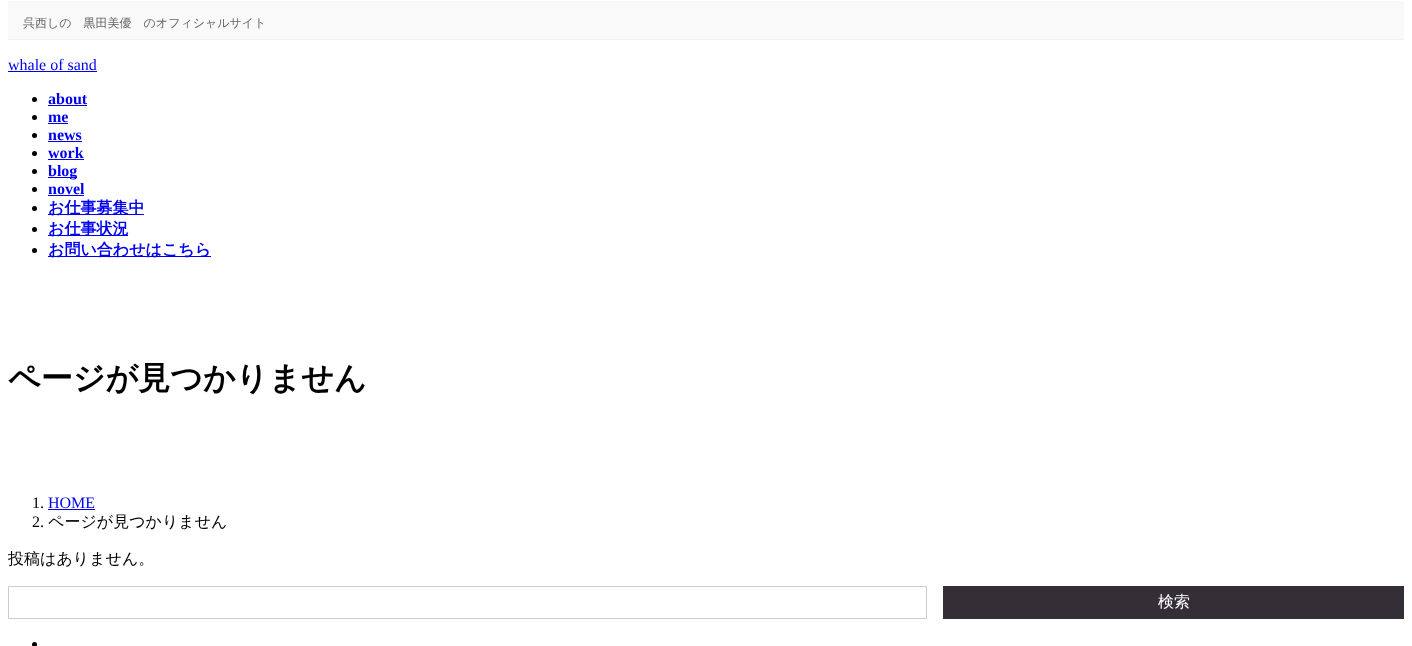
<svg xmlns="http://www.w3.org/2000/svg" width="1412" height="646">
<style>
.a{font:500 12px WenQuanYi Zen Hei;fill:#666}
.b{font:16px Liberation Serif;fill:#00e}
.c{font:bold 16px Liberation Serif;fill:#00e}
.d{font:bold 16px WenQuanYi Zen Hei;fill:#00e}
.e{font:bold 32px WenQuanYi Zen Hei;fill:#000}
.f{font:16px Liberation Serif;fill:#000}
.g{font:500 16px WenQuanYi Zen Hei;fill:#000}
.h{font:500 16px WenQuanYi Zen Hei;fill:#fff}
</style>
<rect width="100%" height="100%" fill="#fff"/>
<path fill="#f9f9f9" d="M8 1h1396v38H8z"/>
<path fill="#f3f3f3" d="M8 39h1396v1H8z"/>
<path fill="#00e" d="M8 71h89v1H8z"/>
<circle fill="#000" cx="34.5" cy="99.5" r="2.5"/>
<path fill="#00e" d="M48 105h39v1H48z"/>
<circle fill="#000" cx="34.5" cy="117.5" r="2.5"/>
<path fill="#00e" d="M48 123h20v1H48z"/>
<circle fill="#000" cx="34.5" cy="135.5" r="2.5"/>
<path fill="#00e" d="M48 141h34v1H48z"/>
<circle fill="#000" cx="34.5" cy="153.5" r="2.5"/>
<path fill="#00e" d="M48 159h36v1H48z"/>
<circle fill="#000" cx="34.5" cy="171.5" r="2.5"/>
<path fill="#00e" d="M48 177h29v1H48z"/>
<circle fill="#000" cx="34.5" cy="189.5" r="2.5"/>
<path fill="#00e" d="M48 195h36v1H48z"/>
<circle fill="#000" cx="34.5" cy="208.5" r="2.5"/>
<path fill="#00e" d="M48 214h96v1H48z"/>
<circle fill="#000" cx="34.5" cy="229.5" r="2.5"/>
<path fill="#00e" d="M48 235h80v1H48z"/>
<circle fill="#000" cx="34.5" cy="250.5" r="2.5"/>
<path fill="#00e" d="M48 256h163v1H48z"/>
<path fill="#00e" d="M48 509h47v1H48z"/>
<path fill="none" stroke="#ccc" d="M8.5 586.5h918v32H8.5z"/>
<path fill="#342e36" d="M943 586h461v33H943z"/>
<circle fill="#000" cx="34.5" cy="644.5" r="2.5"/>
<text class="a" x="23" y="27">呉西しの　黒田美優　のオフィシャルサイト</text>
<text class="b" x="8" y="70">whale of sand</text>
<text class="c" x="48" y="104">about</text>
<text class="c" x="48" y="122">me</text>
<text class="c" x="48" y="140">news</text>
<text class="c" x="48" y="158">work</text>
<text class="c" x="48" y="176">blog</text>
<text class="c" x="48" y="194">novel</text>
<text class="d" x="48" y="213">お仕事募集中</text>
<text class="d" x="48" y="234">お仕事状況</text>
<text class="d" x="48" y="255">お問い合わせはこちら</text>
<text class="e" x="8" y="389">ページが見つかりません</text>
<text class="f" x="32" y="508">1.</text>
<text class="b" x="48" y="508">HOME</text>
<text class="f" x="32" y="527">2.</text>
<text class="g" x="48" y="527">ページが見つかりません</text>
<text class="g" x="8" y="564">投稿はありません。</text>
<text class="h" x="1158" y="607">検索</text>
</svg>
